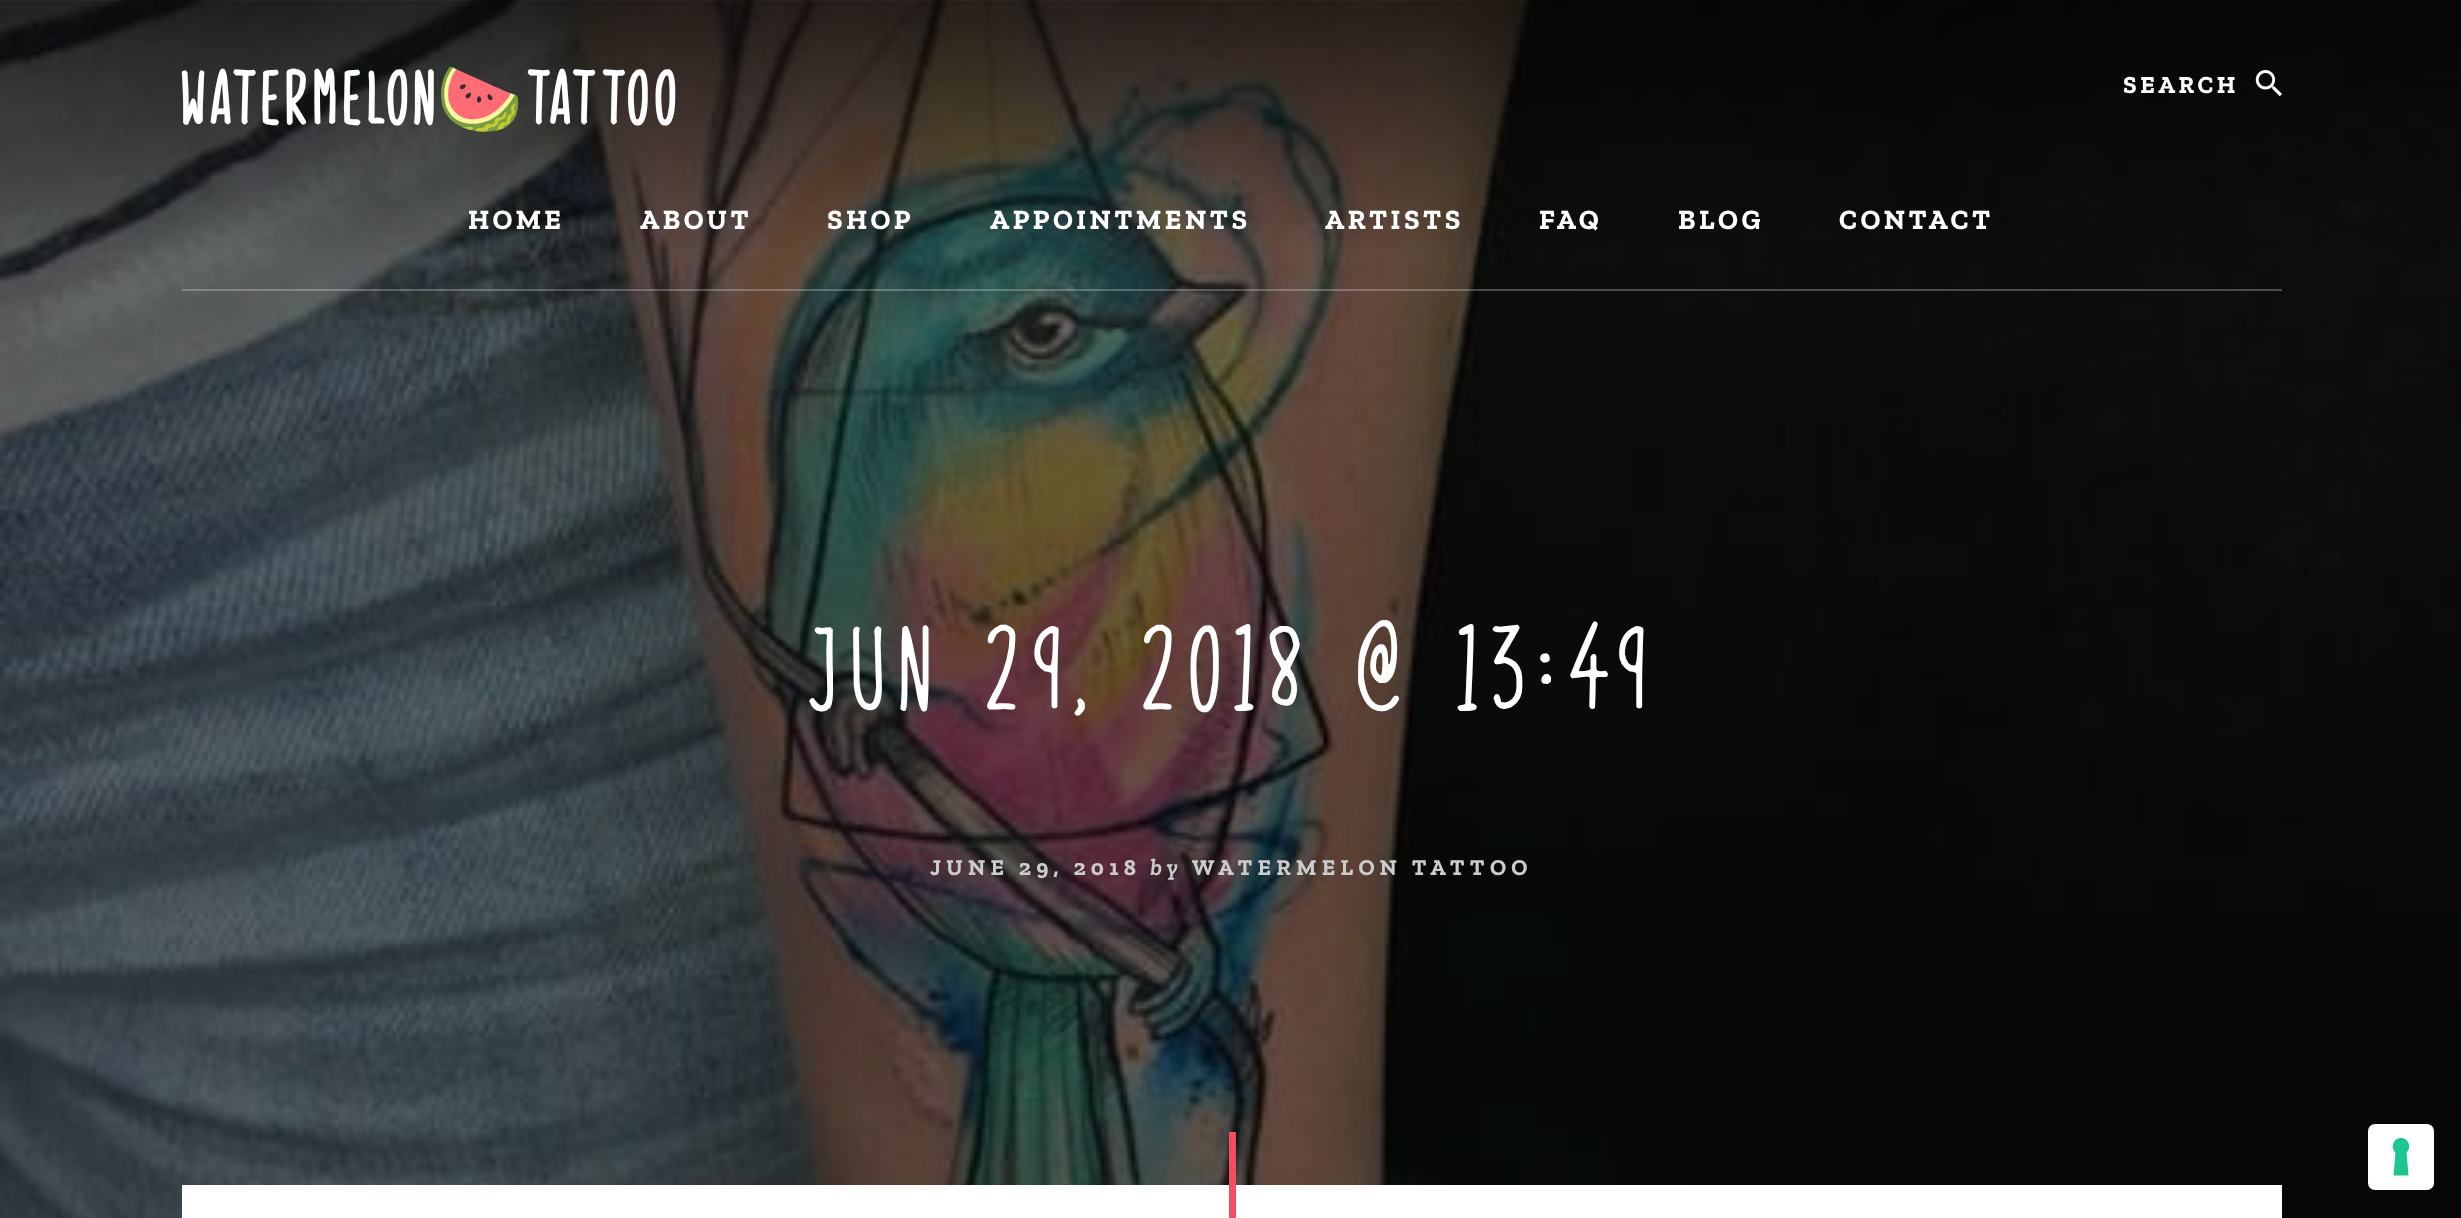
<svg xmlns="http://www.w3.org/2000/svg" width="2461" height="1218">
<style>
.a{font:bold 70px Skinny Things;letter-spacing:3.5px;fill:#fff}
.b{font:bold 70px Noto Color Emoji;letter-spacing:3.5px;fill:#fff}
.c{font:bold 24.5px Zilla Slab;letter-spacing:3.5px;fill:#fff}
.d{font:bold 28px Zilla Slab;letter-spacing:3.5px;fill:#fff}
.e{font:100 112px Skinny Things;letter-spacing:8.75px;fill:#fff}
.f{font:bold 22.75px Zilla Slab;letter-spacing:5.25px;fill:#ccc}
.g{font:italic bold 22.75px Zilla Slab;letter-spacing:5.25px;fill:#ccc}
</style>
<rect width="100%" height="100%" fill="#fff"/>
<image href="1.png" x="0" y="0" width="2461" height="1218"/>
<image href="2.png" x="2255" y="70" width="27" height="27"/>
<path fill="#ffffff40" d="M182 289h2100v2H182z"/>
<path fill="#fff" d="M182 1185h2100v33H182z"/>
<path fill="#f44b67" d="M1229 1132h7v86H1229z"/>
<rect fill="#fff" x="2368" y="1124" width="66" height="66" rx="7"/>
<path fill="#1cc691" fill-rule="evenodd" d="M2401 1138c7.5 0 11 9.5 5.5 14.5l2 23h-15l2-23c-5.5-5-2-14.5 5.5-14.5z"/>
<text class="a" x="181" y="123">WATERMELON</text>
<text class="b" x="436" y="123">🍉</text>
<text class="a" x="527" y="123">TATTOO</text>
<text class="c" x="2123" y="93">SEARCH</text>
<text class="d" x="468" y="229">HOME</text>
<text class="d" x="640" y="229">ABOUT</text>
<text class="d" x="827" y="229">SHOP</text>
<text class="d" x="990" y="229">APPOINTMENTS</text>
<text class="d" x="1325" y="229">ARTISTS</text>
<text class="d" x="1539" y="229">FAQ</text>
<text class="d" x="1678" y="229">BLOG</text>
<text class="d" x="1839" y="229">CONTACT</text>
<text class="e" x="808" y="708">JUN 29, 2018 @ 13:49</text>
<text class="f" x="930" y="875">JUNE 29, 2018</text>
<text class="g" x="1150" y="875">by</text>
<text class="f" x="1192" y="875">WATERMELON TATTOO</text>
</svg>
